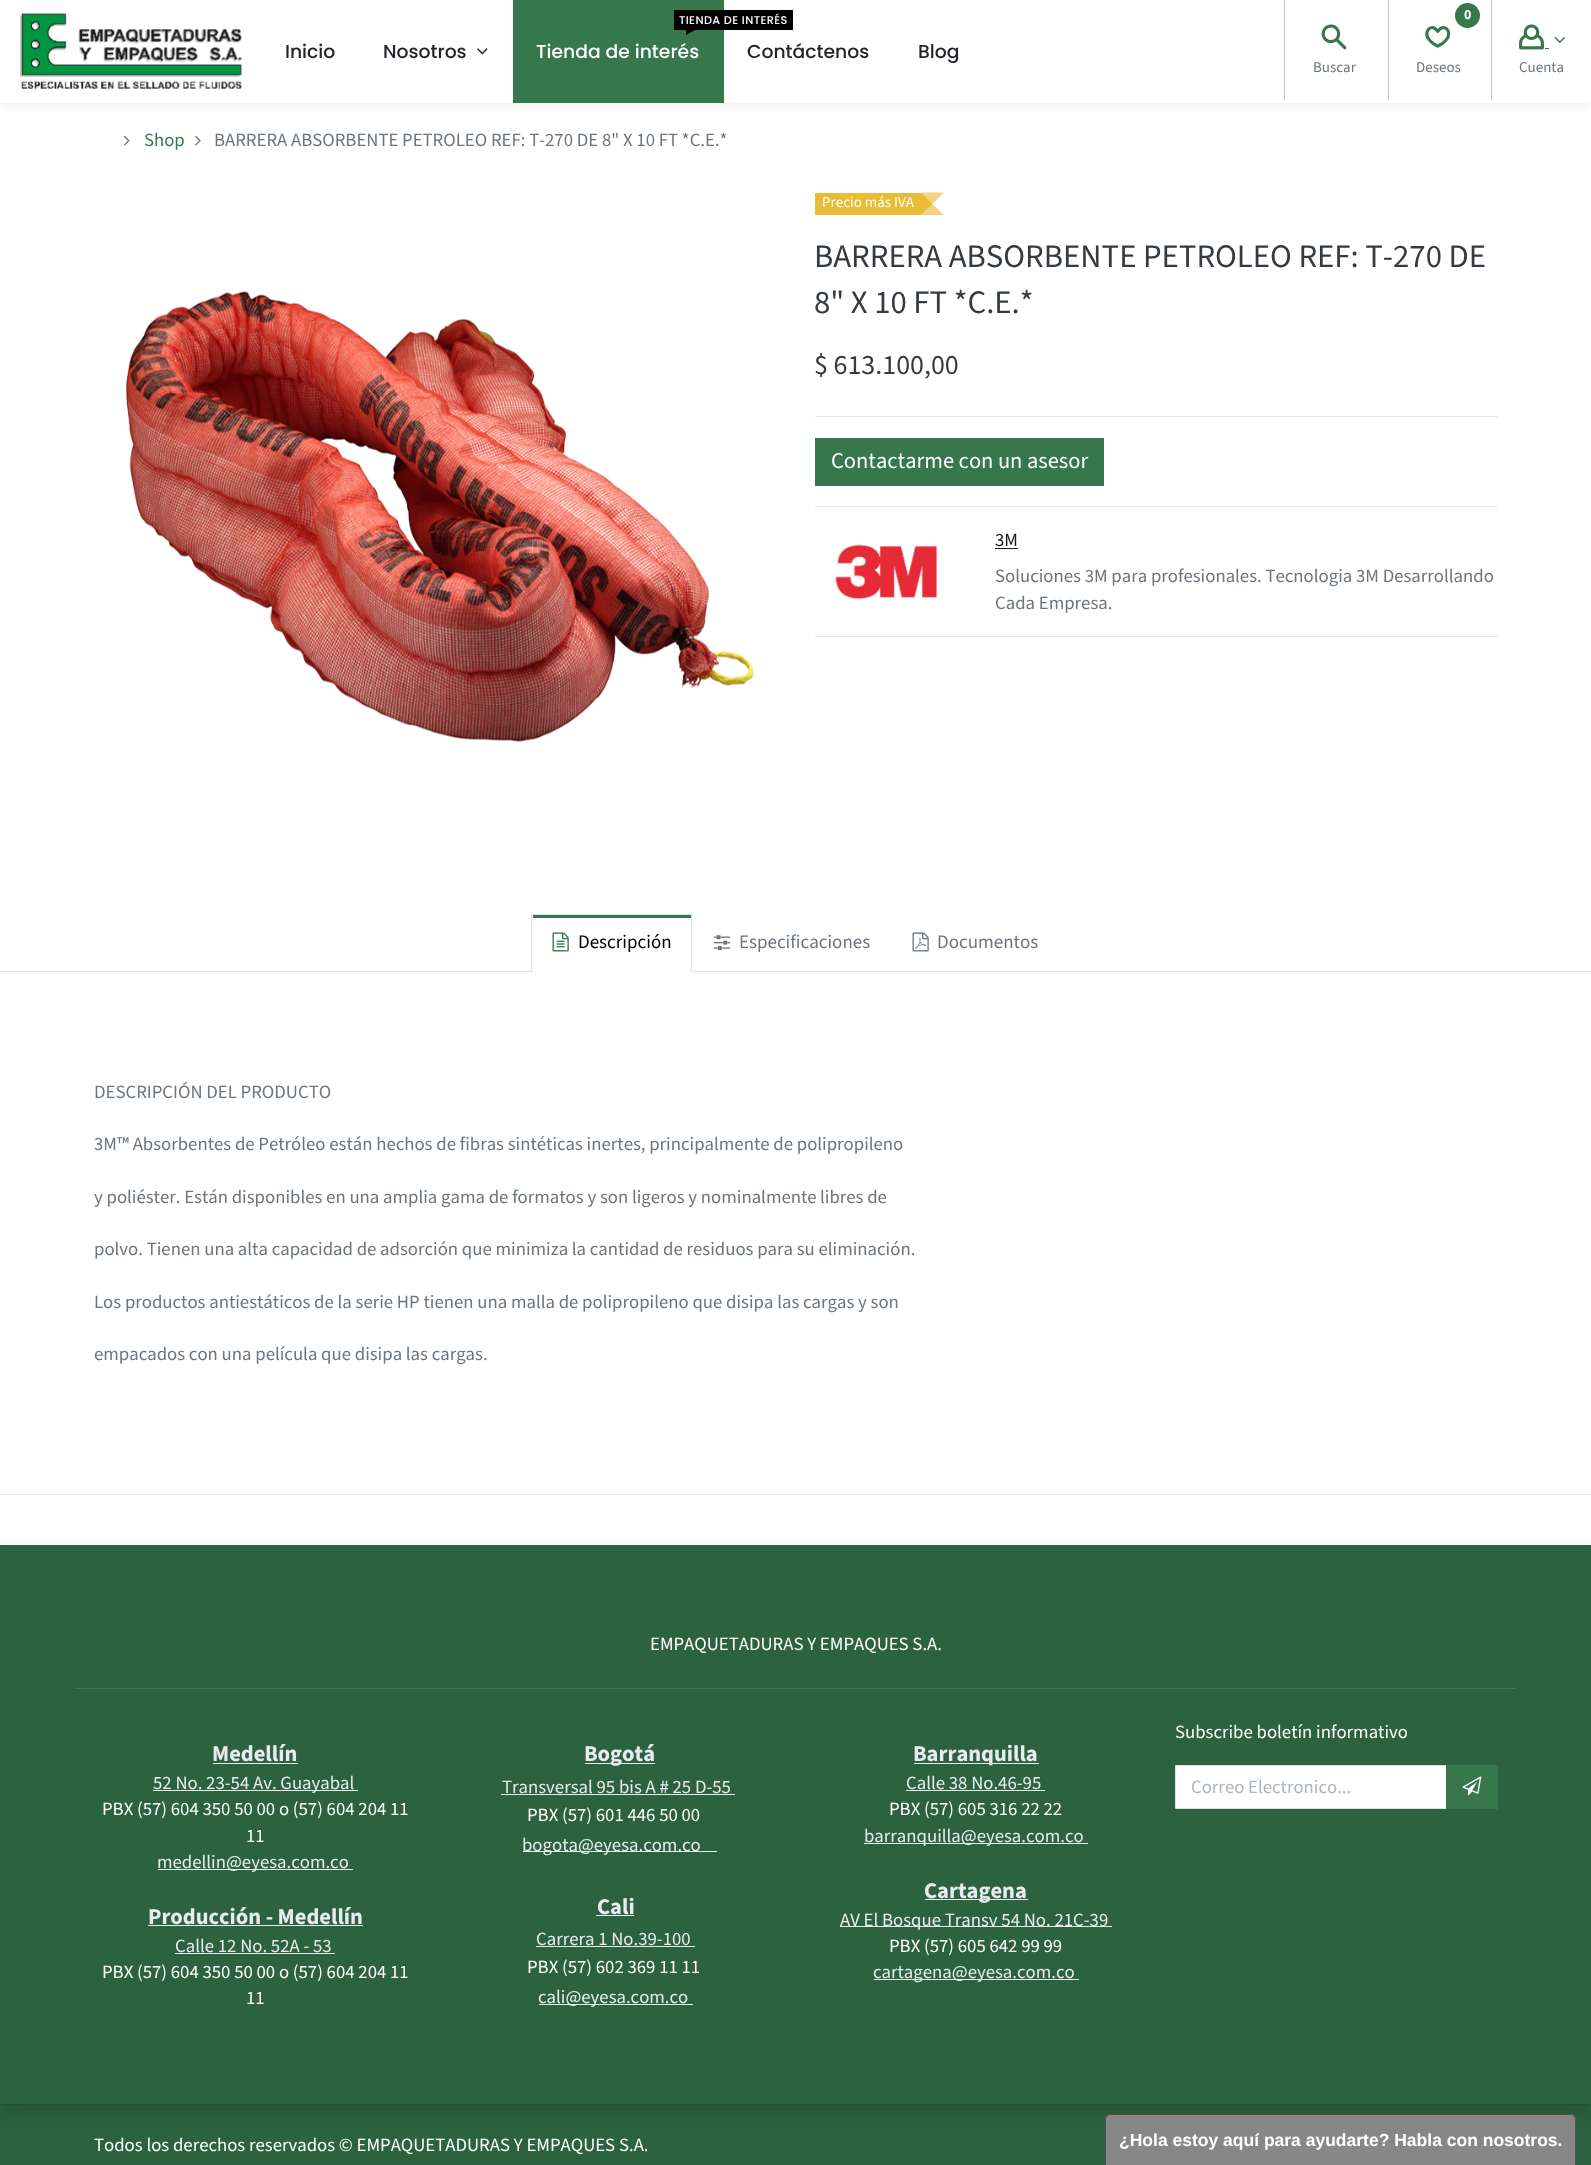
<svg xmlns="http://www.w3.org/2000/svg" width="1591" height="2165">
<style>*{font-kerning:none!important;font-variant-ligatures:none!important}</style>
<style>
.a{font:500 18.75px Poppins;fill:#212529}
.b{font:500 11.25px Poppins;letter-spacing:0.4px;fill:#fff}
.c{font:500 18.75px Poppins;fill:#fff}
.d{font:15px 'Source Sans 3';fill:#6c757d}
.e{font:bold 14px 'Source Sans 3';fill:#fff}
.f{font:18.75px 'Source Sans 3';fill:#36774c}
.g{font:18.75px 'Source Sans 3';fill:#6c757d}
.h{font:15px 'Source Sans 3';fill:#fff}
.i{font:32.8px 'Source Sans 3';fill:#343a40}
.j{font:28px 'Source Sans 3';fill:#343a40}
.k{font:22.5px 'Source Sans 3';fill:#fff}
.l{font:18.75px 'Source Sans 3';fill:#191a1a}
.m{font:19px 'Source Sans 3';fill:#000}
.n{font:19px 'Source Sans 3';fill:#6c757d}
.o{font:18.75px 'Source Sans 3';fill:#fff}
.p{font:bold 22.5px 'Source Sans 3';fill:#e9ecef}
.q{font:18.75px 'Source Sans 3';fill:#e9ecef}
.r{font:18.75px 'Source Sans 3';fill:#adb5bd}
.s{font:bold 17.5px Liberation Sans;fill:#fff}
</style>
<defs>
<clipPath id="clip1"><path d="M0 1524h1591v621h-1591zm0 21h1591v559h-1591z" clip-rule="evenodd"/></clipPath>
</defs>
<rect width="100%" height="100%" fill="#fff"/>
<path fill="#00000012" filter="blur(5px)" d="M0 3h1591v102H0z"/>
<path fill="#fff" d="M0 0h1591v103H0z"/>
<image href="1.png" x="20" y="13" width="222" height="76"/>
<image href="2.png" x="477" y="48" width="11" height="7"/>
<path fill="#36774c" d="M513 0h211v103H513z"/>
<path fill="#000" d="M674 10h119v20H674z"/>
<path fill="#000" d="M686 30h9l-9 5z"/>
<path fill="#cacbcb" d="M1284 0h1v101H1284z"/>
<image href="3.png" x="1321" y="24" width="26" height="26"/>
<path fill="#cacbcb" d="M1388 0h1v101H1388z"/>
<circle fill="#36774c" cx="1467.5" cy="15.5" r="12.5"/>
<image href="4.png" x="1425" y="26" width="26" height="22"/>
<path fill="#cacbcb" d="M1491 0h1v101H1491z"/>
<image href="5.png" x="1519" y="24" width="25" height="26"/>
<image href="6.png" x="1554" y="37" width="11" height="6"/>
<path fill="#36774c" d="M1545 48h4v1H1545z"/>
<image href="7.png" x="123" y="135" width="7" height="11"/>
<image href="8.png" x="195" y="135" width="6" height="11"/>
<image href="9.png" x="125" y="291" width="629" height="451"/>
<path fill="#e9bc35" d="M815 193h106v22H815z"/>
<path fill="#f1d581" d="M921 192.5h23l-11.5 11.5zm23 22.5h-23l11.5-11z"/>
<path fill="#e3ab02cc" d="M921 215v-22.5l11.5 11.5z"/>
<path fill="#e6e6e6" d="M815 416h683v1H815z"/>
<path fill="#36774c" d="M815 438h289v48H815z"/>
<path fill="#e6e6e6" d="M815 506h683v1H815z"/>
<image href="10.png" x="835" y="544" width="103" height="56"/>
<path fill="#191a1a" d="M995 548h23v1H995z"/>
<path fill="#e6e6e6" d="M815 636h683v1H815z"/>
<path fill="#dee2e6" d="M0 971h1591v1H0z"/>
<path fill="#fff" d="M532 971h161v1H532z"/>
<path fill="#36774c" d="M533 915h158v3H533z"/>
<path fill="#dee2e6" d="M531 914h162v1H531z"/>
<path fill="#dee2e6" d="M691 914h1v59H691z"/>
<path fill="#fff" d="M531 971h162v1H531z"/>
<path fill="#dee2e6" d="M531 914h1v59H531z"/>
<image href="11.png" x="552" y="932" width="17" height="20"/>
<image href="12.png" x="713" y="935" width="18" height="16"/>
<image href="13.png" x="912" y="932" width="17" height="20"/>
<path fill="#dee2e6" d="M0 1494h1591v1H0z"/>
<path fill="#2c623f" d="M0 1545h1591v620H0z"/>
<g clip-path="url(#clip1)">
<path fill="#00000026" filter="blur(10px)" d="M0 1555h1591v559H0z"/>
</g>
<path fill="#457556" d="M75 1688h1441v1H75z"/>
<path fill="#e9ecef" d="M213 1763h85v1H213z"/>
<path fill="#e9ecef" d="M153 1790h205v1H153z"/>
<path fill="#e9ecef" d="M158 1869h195v1H158z"/>
<path fill="#e9ecef" d="M148 1925h215v1H148z"/>
<path fill="#e9ecef" d="M175 1953h160v1H175z"/>
<path fill="#e9ecef" d="M585 1763h70v1H585z"/>
<path fill="#e9ecef" d="M501 1794h234v1H501z"/>
<path fill="#e9ecef" d="M523 1851h194v1H523z"/>
<path fill="#e9ecef" d="M596 1915h38v1H596z"/>
<path fill="#e9ecef" d="M536 1946h159v1H536z"/>
<path fill="#e9ecef" d="M539 2004h154v1H539z"/>
<path fill="#e9ecef" d="M914 1763h125v1H914z"/>
<path fill="#e9ecef" d="M906 1790h139v1H906z"/>
<path fill="#e9ecef" d="M864 1843h224v1H864z"/>
<path fill="#e9ecef" d="M925 1899h103v1H925z"/>
<path fill="#e9ecef" d="M840 1926h272v1H840z"/>
<path fill="#e9ecef" d="M874 1979h205v1H874z"/>
<path fill="#fff" d="M1176 1766h270v42H1176z"/>
<path fill="none" stroke="#dee2e6" d="M1175.5 1765.5h272v43H1175.5z"/>
<path fill="#36774c" d="M1446 1765h52v44H1446z"/>
<image href="14.png" x="1462" y="1776" width="20" height="20"/>
<path fill="#2125291f" d="M0 2104h1591v1H0z"/>
<path fill="#878787" d="M1111 2114h459c3.5 0 6 2.5 6 6v45h-471v-45c0-3.5 2.5-6 6-6z"/>
<path fill="#505050" fill-rule="evenodd" d="M1111 2114h459c3 0 6 3 6 6v45h-471v-45c0-3 3-6 6-6zm0 1h459c3 0 5 2 5 5v45h-469v-45c0-3 2-5 5-5z"/>
<text class="a" x="285" y="58">Inicio</text>
<text class="a" x="383" y="58">Nosotros</text>
<text class="b" x="679" y="24">TIENDA DE INTERÉS</text>
<text class="c" x="536" y="58">Tienda de interés</text>
<text class="a" x="747" y="58">Contáctenos</text>
<text class="a" x="918" y="58">Blog</text>
<text class="d" x="1313" y="72">Buscar</text>
<text class="e" x="1464" y="19">0</text>
<text class="d" x="1416" y="72">Deseos</text>
<text class="d" x="1519" y="72">Cuenta</text>
<text class="f" x="144" y="146">Shop</text>
<text class="g" x="214" y="146">BARRERA ABSORBENTE PETROLEO REF: T-270 DE 8" X 10 FT *C.E.*</text>
<text class="h" x="822" y="207">Precio más IVA</text>
<text class="i" x="814" y="267">BARRERA ABSORBENTE PETROLEO REF: T-270 DE</text>
<text class="i" x="814" y="313">8" X 10 FT *C.E.*</text>
<text class="j" x="814" y="374">$ 613.100,00</text>
<text class="k" x="831" y="468">Contactarme con un asesor</text>
<text class="l" x="995" y="546">3M</text>
<text class="g" x="995" y="582">Soluciones 3M para profesionales. Tecnologia 3M Desarrollando</text>
<text class="g" x="995" y="609">Cada Empresa.</text>
<text class="m" x="578" y="948">Descripción</text>
<text class="n" x="739" y="948">Especificaciones</text>
<text class="n" x="937" y="948">Documentos</text>
<text class="g" x="94" y="1098">DESCRIPCIÓN DEL PRODUCTO</text>
<text class="g" x="94" y="1150">3M™ Absorbentes de Petróleo están hechos de fibras sintéticas inertes, principalmente de polipropileno</text>
<text class="g" x="94" y="1203">y poliéster. Están disponibles en una amplia gama de formatos y son ligeros y nominalmente</text>
<text class="g" x="820" y="1203">libres de</text>
<text class="g" x="94" y="1255">polvo. Tienen una alta capacidad de adsorción que minimiza la cantidad de residuos para su eliminación.</text>
<text class="g" x="94" y="1308">Los productos antiestáticos de la serie HP tienen una malla de polipropileno que disipa las cargas y son</text>
<text class="g" x="94" y="1360">empacados con una película que disipa las cargas.</text>
<text class="o" x="650" y="1650">EMPAQUETADURAS Y EMPAQUES S.A.</text>
<text class="p" x="212" y="1761">Medellín</text>
<text class="q" x="153" y="1789">52 No. 23-54 Av. Guayabal</text>
<text class="o" x="102" y="1815">PBX (57) 604 350 50 00 o (57) 604 204 11</text>
<text class="o" x="246" y="1842">11</text>
<text class="q" x="157" y="1868">medellin@eyesa.com.co</text>
<text class="p" x="148" y="1924">Producción - Medellín</text>
<text class="q" x="175" y="1952">Calle 12 No. 52A - 53</text>
<text class="o" x="102" y="1978">PBX (57) 604 350 50 00 o (57) 604 204 11</text>
<text class="o" x="246" y="2004">11</text>
<text class="p" x="584" y="1761">Bogotá</text>
<text class="q" x="502" y="1793">Transversal 95 bis A # 25 D-55</text>
<text class="o" x="527" y="1821">PBX (57) 601 446 50 00</text>
<text class="q" x="522" y="1851">bogota@eyesa.com.co</text>
<text class="p" x="597" y="1914">Cali</text>
<text class="q" x="536" y="1945">Carrera 1 No.39-100</text>
<text class="o" x="527" y="1973">PBX (57) 602 369 11 11</text>
<text class="q" x="538" y="2003">cali@eyesa.com.co</text>
<text class="p" x="913" y="1761">Barranquilla</text>
<text class="q" x="906" y="1789">Calle 38 No.46-95</text>
<text class="o" x="889" y="1815">PBX (57) 605 316 22 22</text>
<text class="q" x="864" y="1842">barranquilla@eyesa.com.co</text>
<text class="p" x="924" y="1898">Cartagena</text>
<text class="q" x="840" y="1926">AV El Bosque Transv 54 No. 21C-39</text>
<text class="o" x="889" y="1952">PBX (57) 605 642 99 99</text>
<text class="q" x="873" y="1978">cartagena@eyesa.com.co</text>
<text class="o" x="1175" y="1738">Subscribe boletín informativo</text>
<text class="r" x="1191" y="1793">Correo Electronico...</text>
<text class="o" x="94" y="2151">Todos los derechos reservados © EMPAQUETADURAS Y EMPAQUES</text>
<text class="o" x="619" y="2151">S.A.</text>
<text class="s" x="1119" y="2146">¿Hola estoy aquí para ayudarte? Habla con nosotros.</text>
</svg>
